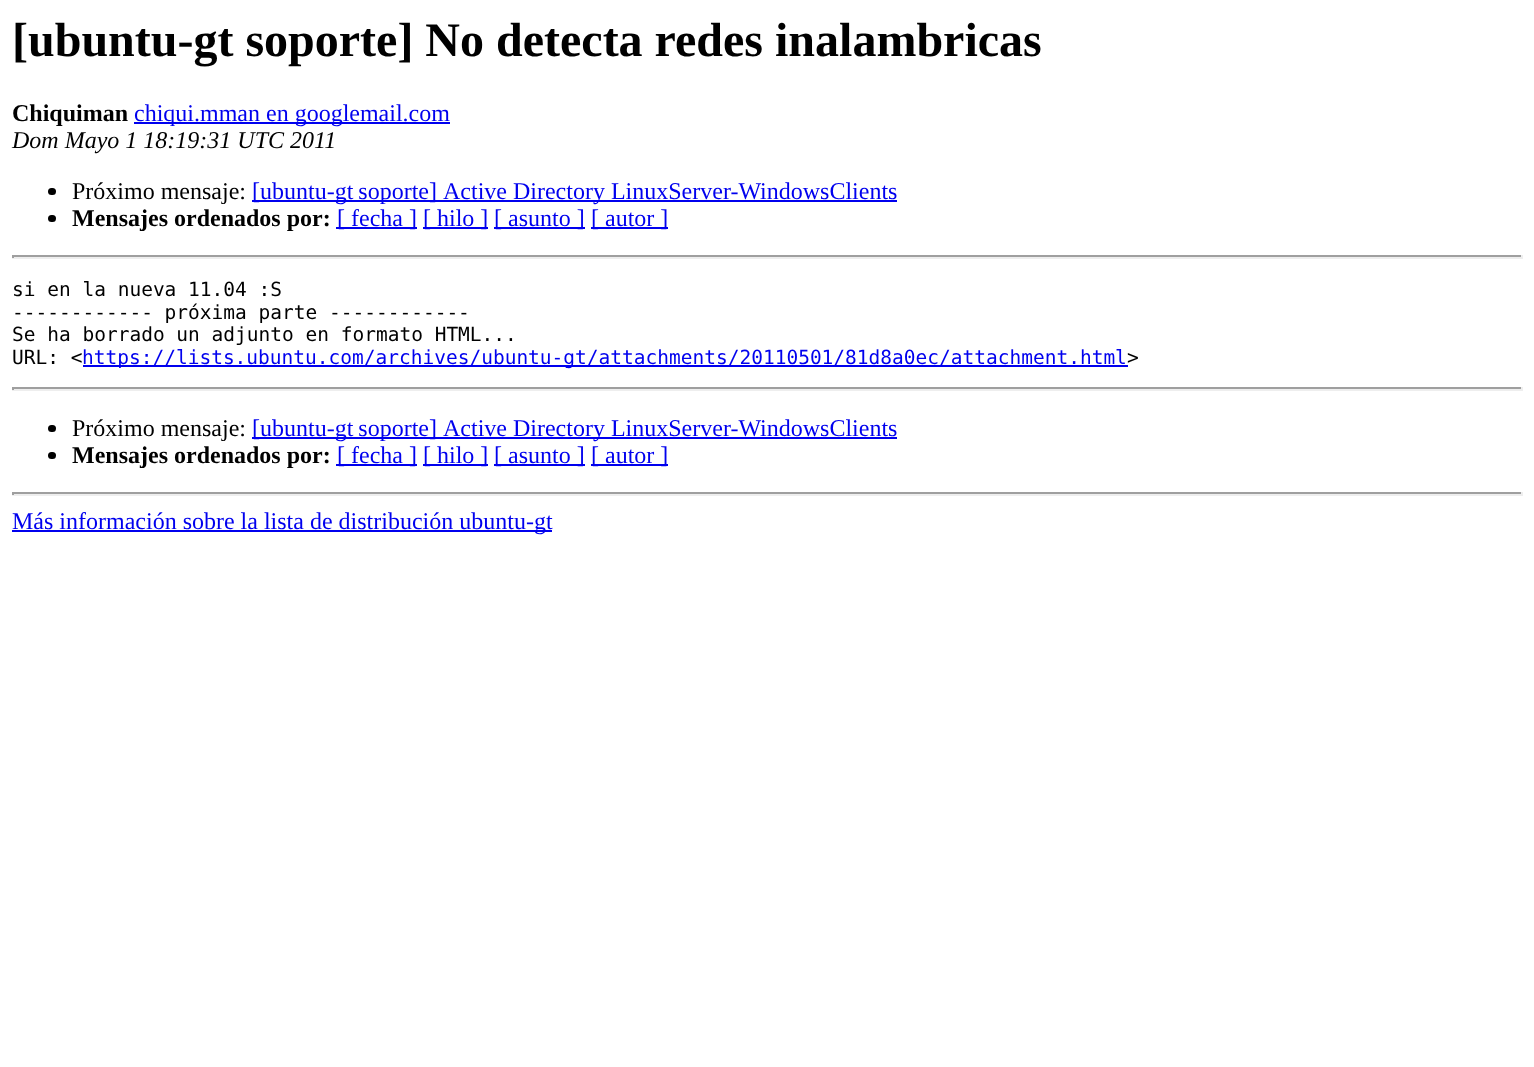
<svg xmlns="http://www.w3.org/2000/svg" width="1534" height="1067">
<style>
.a{font:bold 48px Liberation Serif;fill:#000}
.b{font:bold 24px Liberation Serif;fill:#000}
.c{font:24px Liberation Serif;fill:#00e}
.d{font:italic 24px Liberation Serif;fill:#000}
.e{font:24px Liberation Serif;fill:#000}
.f{font:19.5px DejaVu Sans Mono;fill:#000}
.g{font:19.5px DejaVu Sans Mono;fill:#00e}
</style>
<rect width="100%" height="100%" fill="#fff"/>
<path fill="#00e" d="M134 122h316v2H134z"/>
<rect fill="#000" x="48" y="188" width="8" height="7" rx="3.5"/>
<path fill="#00e" d="M252 200h645v2H252z"/>
<rect fill="#000" x="48" y="215" width="8" height="7" rx="3.5"/>
<path fill="#00e" d="M336 227h81v2H336z"/>
<path fill="#00e" d="M423 227h65v2H423z"/>
<path fill="#00e" d="M494 227h91v2H494z"/>
<path fill="#00e" d="M591 227h77v2H591z"/>
<path fill="#9f9f9f" d="M12 255h1511v2H12z"/>
<path fill="#eee" d="M1521 255h2v3H1521z"/>
<path fill="#eee" d="M12 257h1511v2H12z"/>
<path fill="#9f9f9f" d="M12 255h2v3H12z"/>
<path fill="#00e" d="M83 365h1045v2H83z"/>
<path fill="#9f9f9f" d="M12 387h1511v2H12z"/>
<path fill="#eee" d="M1521 387h2v3H1521z"/>
<path fill="#eee" d="M12 389h1511v2H12z"/>
<path fill="#9f9f9f" d="M12 387h2v3H12z"/>
<rect fill="#000" x="48" y="425" width="8" height="7" rx="3.5"/>
<path fill="#00e" d="M252 437h645v2H252z"/>
<rect fill="#000" x="48" y="452" width="8" height="7" rx="3.5"/>
<path fill="#00e" d="M336 464h81v2H336z"/>
<path fill="#00e" d="M423 464h65v2H423z"/>
<path fill="#00e" d="M494 464h91v2H494z"/>
<path fill="#00e" d="M591 464h77v2H591z"/>
<path fill="#9f9f9f" d="M12 492h1511v2H12z"/>
<path fill="#eee" d="M1521 492h2v3H1521z"/>
<path fill="#eee" d="M12 494h1511v2H12z"/>
<path fill="#9f9f9f" d="M12 492h2v3H12z"/>
<path fill="#00e" d="M12 530h540v2H12z"/>
<text class="a" x="12" y="56">[ubuntu-gt soporte] No detecta redes inalambricas</text>
<text class="b" x="12" y="121">Chiquiman</text>
<text class="c" x="134" y="121">chiqui.mman en googlemail.com</text>
<text class="d" x="12" y="148">Dom Mayo 1 18:19:31 UTC 2011</text>
<text class="e" x="72" y="199">Próximo mensaje:</text>
<text class="c" x="252" y="199" word-spacing="-1">[ubuntu-gt soporte]</text>
<text class="c" x="443" y="199">Active Directory LinuxServer-WindowsClients</text>
<text class="b" x="72" y="226">Mensajes ordenados por:</text>
<text class="c" x="337" y="226">[ fecha ]</text>
<text class="c" x="423" y="226">[ hilo ]</text>
<text class="c" x="494" y="226">[ asunto ]</text>
<text class="c" x="591" y="226">[ autor ]</text>
<text class="f" x="12" y="296">si en la nueva 11.04 :S</text>
<text class="f" x="12" y="319">------------ próxima parte ------------</text>
<text class="f" x="12" y="341">Se ha borrado un adjunto en formato HTML...</text>
<text class="f" x="12" y="364">URL: &lt;</text>
<text class="g" x="82" y="364">https://lists.ubuntu.com/archives/ubuntu-gt/attachments/20110501/81d8a0ec/attachment.html</text>
<text class="f" x="1127" y="364">&gt;</text>
<text class="e" x="72" y="436">Próximo mensaje:</text>
<text class="c" x="252" y="436" word-spacing="-1">[ubuntu-gt soporte]</text>
<text class="c" x="443" y="436">Active Directory LinuxServer-WindowsClients</text>
<text class="b" x="72" y="463">Mensajes ordenados por:</text>
<text class="c" x="337" y="463">[ fecha ]</text>
<text class="c" x="423" y="463">[ hilo ]</text>
<text class="c" x="494" y="463">[ asunto ]</text>
<text class="c" x="591" y="463">[ autor ]</text>
<text class="c" x="12" y="529">Más información sobre la lista de distribución ubuntu-gt</text>
</svg>
